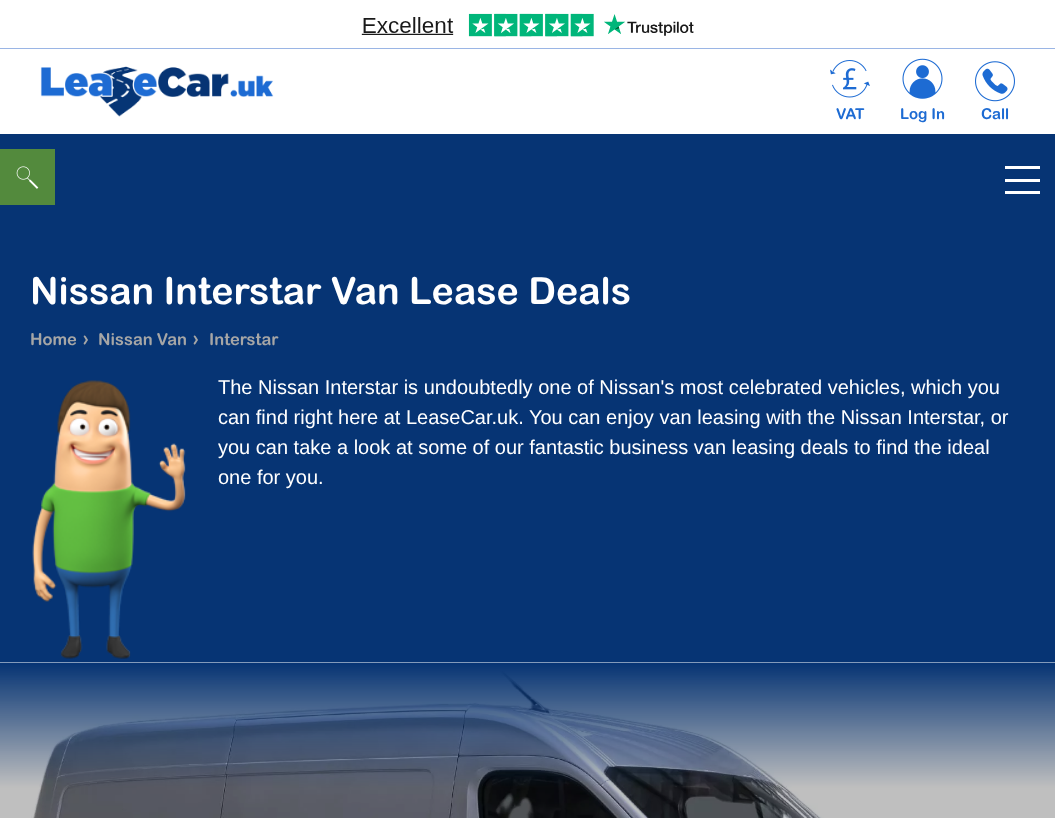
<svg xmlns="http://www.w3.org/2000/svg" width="1055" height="818">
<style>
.a{font:bold 15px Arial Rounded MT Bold;fill:#1d6bd3}
.b{font:bold 37.5px Arial Rounded MT Bold;fill:#fff}
.c{font:bold 16.5px Arial Rounded MT Bold;fill:#a6a6a6}
.d{font:bold 20px Arial Rounded MT Bold;fill:#a6a6a6}
.e{font:20px Liberation Sans;fill:#fff}
</style>
<rect width="100%" height="100%" fill="#063474"/>
<path fill="#fff" d="M0 0h1055v134H0z"/>
<path fill="#9ab5e5" d="M0 48h1055v1H0z"/>
<image href="1.png" x="361" y="13" width="333" height="24"/>
<image href="2.png" x="40" y="66" width="234" height="51"/>
<image href="3.png" x="830" y="60" width="40" height="38"/>
<image href="4.png" x="902" y="58" width="41" height="41"/>
<image href="5.png" x="975" y="61" width="40" height="41"/>
<path fill="#538a3d" d="M0 149h55v56H0z"/>
<image href="6.png" x="16" y="166" width="23" height="23"/>
<path fill="#fff" d="M1005 179h35v3H1005z"/>
<path fill="#fff" d="M1005 166h35v3H1005z"/>
<path fill="#fff" d="M1005 191h35v3H1005z"/>
<image href="7.png" x="32" y="380" width="154" height="279"/>
<image href="8.png" x="0" y="662" width="1055" height="156"/>
<text class="a" x="836" y="119">VAT</text>
<text class="a" x="900" y="119">Log In</text>
<text class="a" x="981" y="119">Call</text>
<text class="b" x="30" y="304">Nissan Interstar Van Lease Deals</text>
<text class="c" x="30" y="345">Home</text>
<text class="d" x="82" y="345">›</text>
<text class="c" x="98" y="345">Nissan Van</text>
<text class="d" x="192" y="345">›</text>
<text class="c" x="209" y="345">Interstar</text>
<text class="e" x="218" y="394">The Nissan Interstar is undoubtedly one of Nissan's most celebrated vehicles, which you</text>
<text class="e" x="218" y="424">can find right here at LeaseCar.uk. You can enjoy van leasing with the Nissan Interstar, or</text>
<text class="e" x="218" y="454">you can take a look at some of our fantastic business van leasing deals to find the ideal</text>
<text class="e" x="218" y="484">one for you.</text>
</svg>
